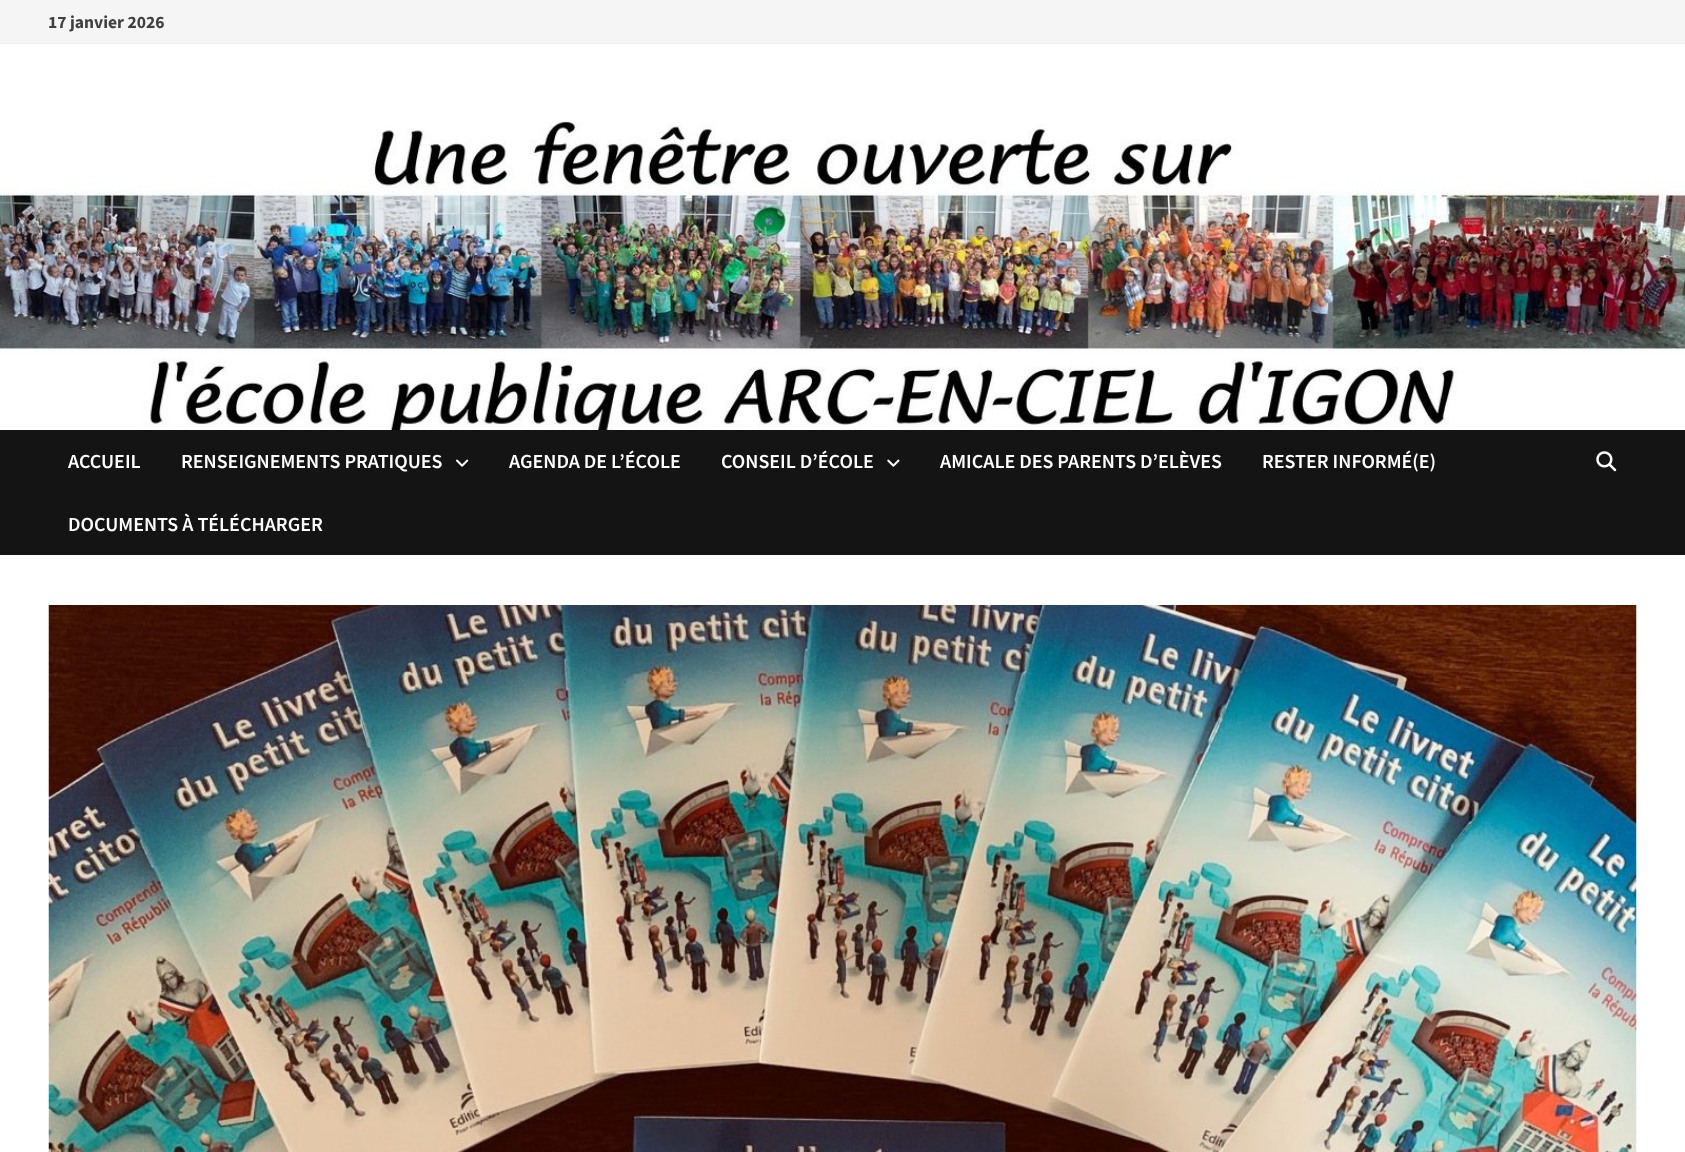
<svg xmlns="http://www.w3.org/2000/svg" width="1685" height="1152">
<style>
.a{font:bold 17.5px Source Sans Pro;fill:#404040}
.b{font:600 20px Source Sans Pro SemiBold;fill:#fff}
</style>
<rect width="100%" height="100%" fill="#fff"/>
<path fill="#f5f5f5" d="M0 0h1685v43H0z"/>
<path fill="#eee" d="M0 43h1685v1H0z"/>
<image href="1.png" x="0" y="121" width="1685" height="309"/>
<path fill="#141414" d="M0 430h1685v125H0z"/>
<image href="2.png" x="456" y="459" width="13" height="8"/>
<image href="3.png" x="887" y="459" width="13" height="8"/>
<image href="4.png" x="1596" y="451" width="21" height="21"/>
<image href="5.png" x="48" y="605" width="1589" height="547"/>
<text class="a" x="48" y="28">17 janvier 2026</text>
<text class="b" x="68" y="468">ACCUEIL</text>
<text class="b" x="181" y="468">RENSEIGNEMENTS PRATIQUES</text>
<text class="b" x="509" y="468">AGENDA DE L’ÉCOLE</text>
<text class="b" x="721" y="468">CONSEIL D’ÉCOLE</text>
<text class="b" x="940" y="468">AMICALE DES PARENTS D’ELÈVES</text>
<text class="b" x="1262" y="468">RESTER INFORMÉ(E)</text>
<text class="b" x="68" y="531">DOCUMENTS À TÉLÉCHARGER</text>
</svg>
